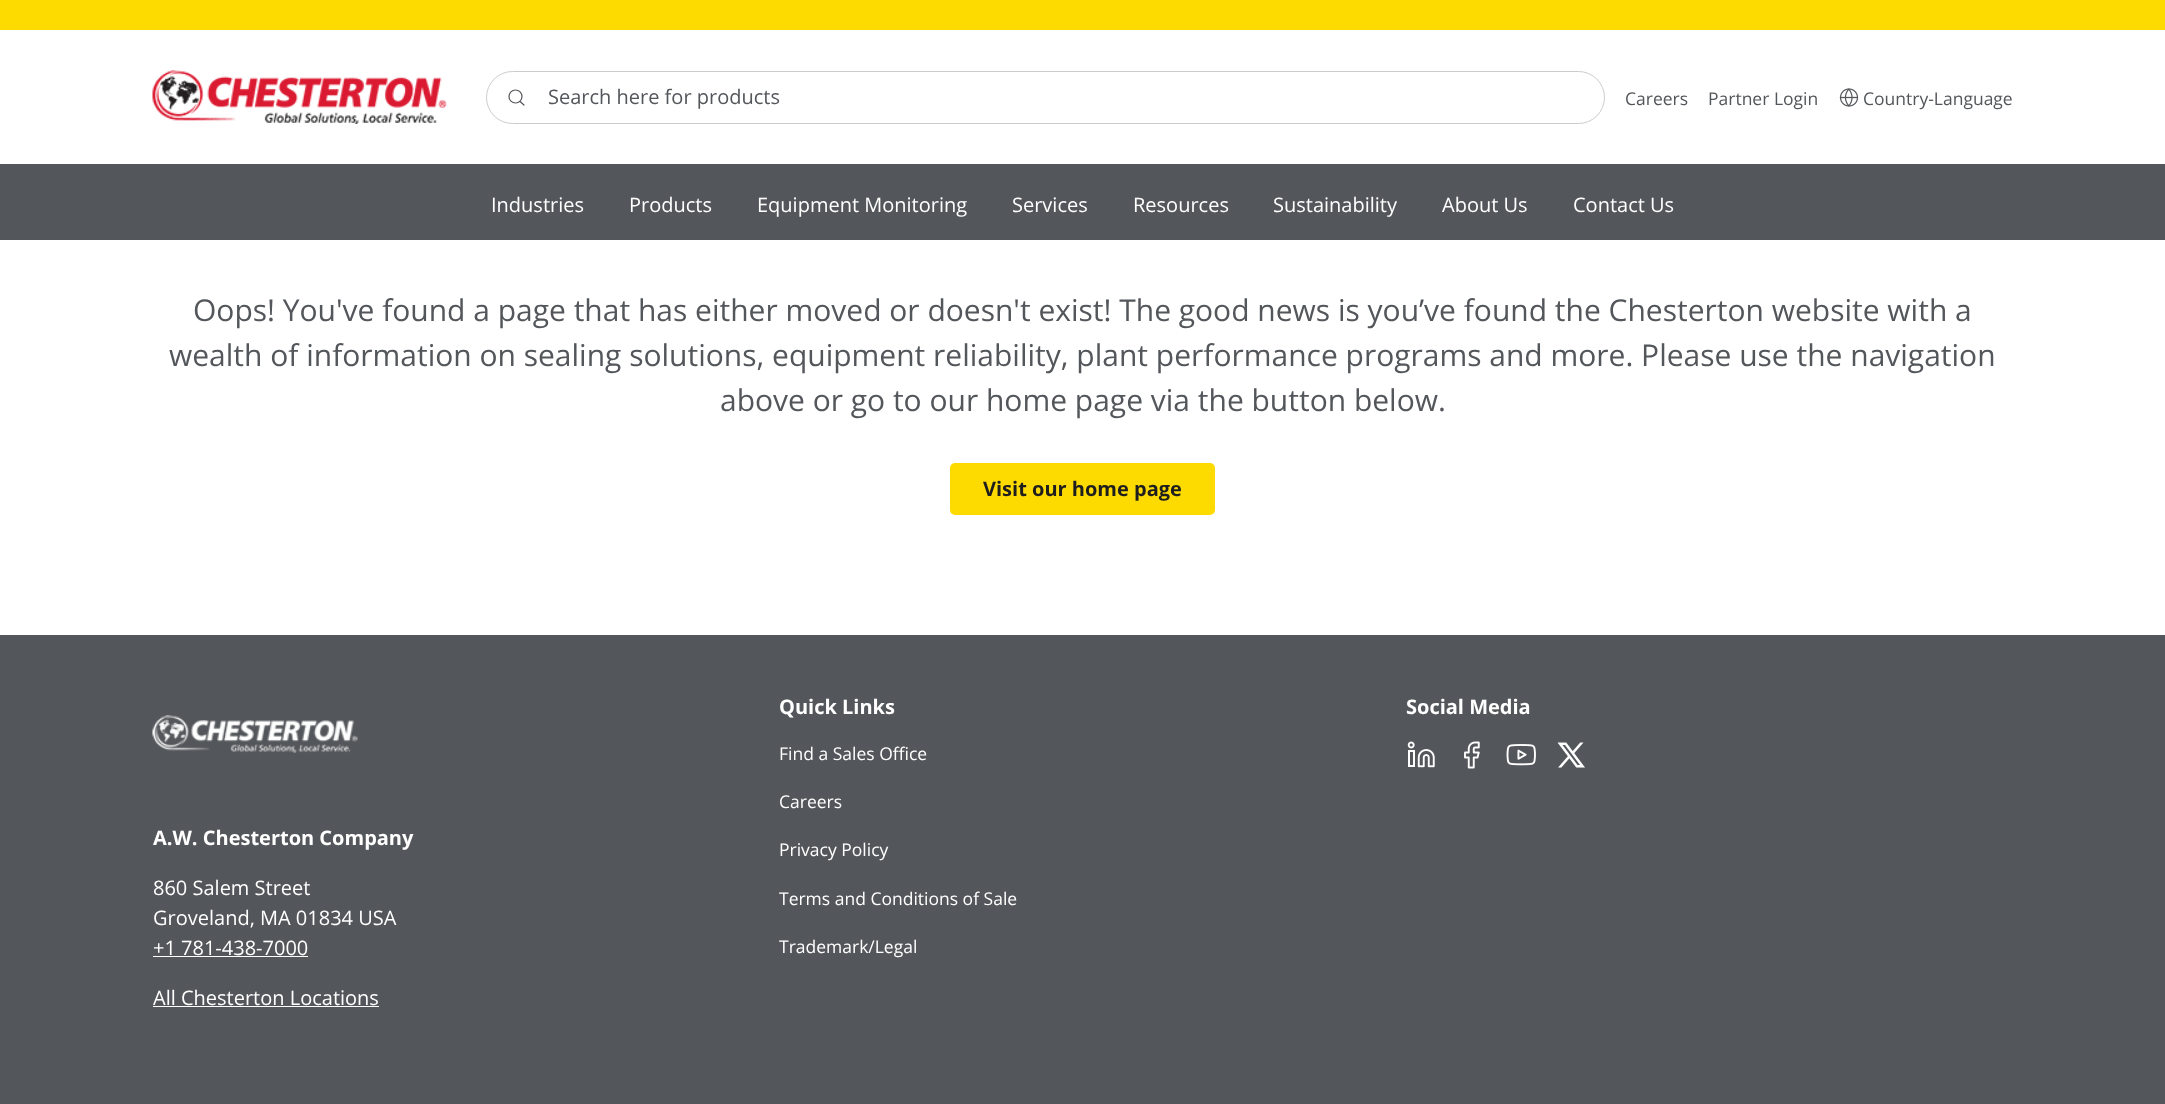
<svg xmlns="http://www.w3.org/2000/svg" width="2165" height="1104">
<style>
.a{font:20px Open Sans;fill:#53565a}
.b{font:17.5px Open Sans;fill:#53565a}
.c{font:20px Open Sans;fill:#fff}
.d{font:30px Open Sans;fill:#53565a}
.e{font:bold 20px Open Sans;fill:#1e1e1e}
.f{font:bold 20px Open Sans;fill:#fff}
.g{font:17.5px Open Sans;fill:#fff}
</style>
<rect width="100%" height="100%" fill="#fff"/>
<path fill="#fedb00" d="M0 0h2165v30H0z"/>
<image href="1.png" x="152" y="70" width="295" height="54"/>
<rect fill="none" stroke="#cbccce" x="486.5" y="71.5" width="1118" height="52" rx="26"/>
<circle fill="none" stroke="#53565a" stroke-width="1.2" cx="515.5" cy="96.5" r="6.5"/>
<path fill="none" stroke="#53565a" stroke-width="1.2" stroke-linecap="round" stroke-linejoin="round" d="M524 105l-4-3.5"/>
<image href="2.png" x="1839" y="88" width="20" height="19"/>
<path fill="#53565a" d="M0 164h2165v76H0z"/>
<rect fill="#fedb00" x="950" y="463" width="265" height="52" rx="5"/>
<path fill="#53565a" d="M0 635h2165v469H0z"/>
<image href="3.png" x="1407" y="741" width="28" height="27"/>
<image href="4.png" x="1464" y="741" width="16" height="28"/>
<image href="5.png" x="1506" y="744" width="30" height="22"/>
<image href="6.png" x="1557" y="742" width="28" height="26"/>
<image href="7.png" x="152" y="715" width="206" height="38"/>
<path fill="#fff" d="M153 956h155v1H153z"/>
<path fill="#fff" d="M153 1006h226v1H153z"/>
<text class="a" x="548" y="104">Search here for products</text>
<text class="b" x="1625" y="105">Careers</text>
<text class="b" x="1708" y="105">Partner Login</text>
<text class="b" x="1863" y="105">Country-Language</text>
<text class="c" x="491" y="212">Industries</text>
<text class="c" x="629" y="212">Products</text>
<text class="c" x="757" y="212">Equipment Monitoring</text>
<text class="c" x="1012" y="212">Services</text>
<text class="c" x="1133" y="212">Resources</text>
<text class="c" x="1273" y="212">Sustainability</text>
<text class="c" x="1442" y="212">About Us</text>
<text class="c" x="1573" y="212">Contact Us</text>
<text class="d" x="193" y="321">Oops! You've found a page that has either moved or doesn't exist! The good news is you’ve found the Chesterton website with a</text>
<text class="d" x="169" y="366">wealth of information on sealing solutions, equipment reliability, plant performance programs and more. Please use the navigation</text>
<text class="d" x="720" y="411">above or go to our home page via the button below.</text>
<text class="e" x="983" y="496">Visit our home page</text>
<text class="f" x="779" y="714">Quick Links</text>
<text class="g" x="779" y="760">Find a Sales Office</text>
<text class="g" x="779" y="808">Careers</text>
<text class="g" x="779" y="856">Privacy Policy</text>
<text class="g" x="779" y="905">Terms and Conditions of Sale</text>
<text class="g" x="779" y="953">Trademark/Legal</text>
<text class="f" x="1406" y="714">Social Media</text>
<text class="f" x="153" y="845">A.W. Chesterton Company</text>
<text class="c" x="153" y="895">860 Salem Street</text>
<text class="c" x="153" y="925">Groveland, MA 01834 USA</text>
<text class="c" x="153" y="955">+1 781-438-7000</text>
<text class="c" x="153" y="1005">All Chesterton Locations</text>
</svg>
